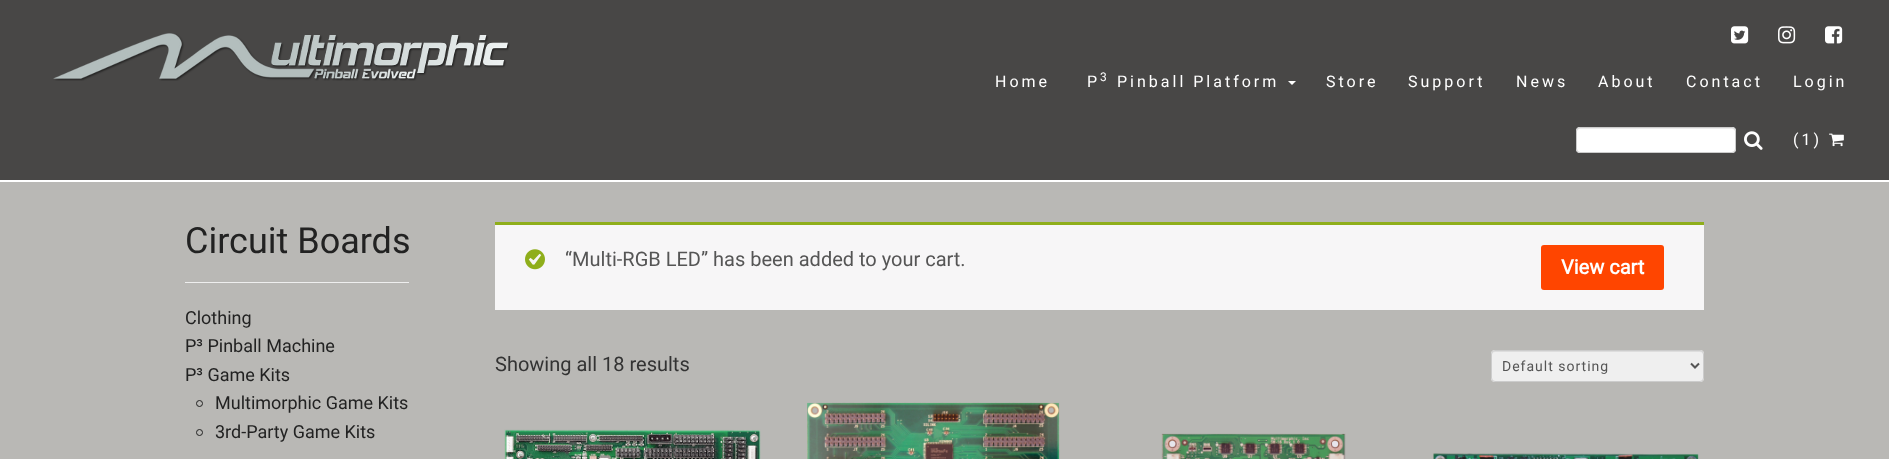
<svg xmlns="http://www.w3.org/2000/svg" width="1889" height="459">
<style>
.a{font:16px Roboto;letter-spacing:3px;fill:#fff}
.b{font:12px Roboto;letter-spacing:3px;fill:#fff}
.c{font:36px Roboto;fill:#222}
.d{font:18px Roboto;fill:#222}
.e{font:20px Roboto;fill:#555}
.f{font:bold 20px Roboto;fill:#fff}
.g{font:20px Roboto;fill:#333}
.h{font:14px Roboto;letter-spacing:1px;fill:#555}
</style>
<rect width="100%" height="100%" fill="#484746"/>
<path fill="#fff" d="M0 180h1889v2H0z"/>
<image href="1.png" x="53" y="33" width="457" height="48"/>
<image href="2.png" x="1731" y="26" width="18" height="18"/>
<image href="3.png" x="1778" y="26" width="18" height="18"/>
<image href="4.png" x="1825" y="26" width="18" height="18"/>
<path fill="#fff" d="M1288 81h8l-4 4z"/>
<rect fill="#fff" x="1576" y="127" width="160" height="26" rx="4"/>
<path fill="#ececec" d="M1580 129h152c2 0 3 1 3 3c0-2-1-4-3-4h-153c-2 0-2 2-2 4c0-2 1-3 3-3z"/>
<rect fill="none" stroke="#ccc" x="1576.5" y="127.5" width="159" height="25" rx="3.5"/>
<image href="5.png" x="1744" y="131" width="19" height="19"/>
<image href="6.png" x="1829" y="133" width="15" height="14"/>
<path fill="#b9b8b5" d="M0 182h1889v277H0z"/>
<path fill="#eee" d="M185 282h224v1H185z"/>
<circle fill="none" stroke="#222" cx="199.5" cy="403.5" r="3"/>
<circle fill="none" stroke="#222" cx="199.5" cy="432.5" r="3"/>
<path fill="#f7f6f7" d="M495 225h1209v85H495z"/>
<path fill="#8fae1b" d="M495 222h1209v3H495z"/>
<image href="7.png" x="525" y="249" width="20" height="21"/>
<rect fill="#ff4500" x="1541" y="245" width="123" height="45" rx="3"/>
<rect fill="#efefef" x="1491" y="350" width="213" height="32" rx="4"/>
<path fill="#ddd" d="M1495 352h205c2 0 3 1 3 3v-1c0-2-1-3-3-3h-205c-2 0-3 1-3 3v1c0-2 1-3 3-3z"/>
<rect fill="none" stroke="#ccc" x="1491.5" y="350.5" width="212" height="31" rx="3.5"/>
<path fill="none" stroke="#555" stroke-width="2" d="M1691 363.5l4 4l4-4"/>
<image href="8.png" x="504" y="429" width="257" height="30"/>
<image href="9.png" x="807" y="402" width="253" height="57"/>
<image href="10.png" x="1161" y="433" width="185" height="26"/>
<image href="11.png" x="1433" y="453" width="266" height="6"/>
<text class="a" x="995" y="87">Home</text>
<text class="a" x="1087" y="87">P</text>
<text class="b" x="1100" y="81">3</text>
<text class="a" x="1117" y="87">Pinball Platform</text>
<text class="a" x="1326" y="87">Store</text>
<text class="a" x="1408" y="87">Support</text>
<text class="a" x="1516" y="87">News</text>
<text class="a" x="1598" y="87">About</text>
<text class="a" x="1686" y="87">Contact</text>
<text class="a" x="1793" y="87">Login</text>
<text class="a" x="1793" y="145">(1)</text>
<text class="c" x="185" y="253">Circuit Boards</text>
<text class="d" x="185" y="324">Clothing</text>
<text class="d" x="185" y="352">P³ Pinball Machine</text>
<text class="d" x="185" y="381">P³ Game Kits</text>
<text class="d" x="215" y="409">Multimorphic Game Kits</text>
<text class="d" x="215" y="438">3rd-Party Game Kits</text>
<text class="e" x="565" y="266">“Multi-RGB LED” has been added to your cart.</text>
<text class="f" x="1561" y="274">View cart</text>
<text class="g" x="495" y="371">Showing all 18 results</text>
<text class="h" x="1502" y="371">Default sorting</text>
</svg>
